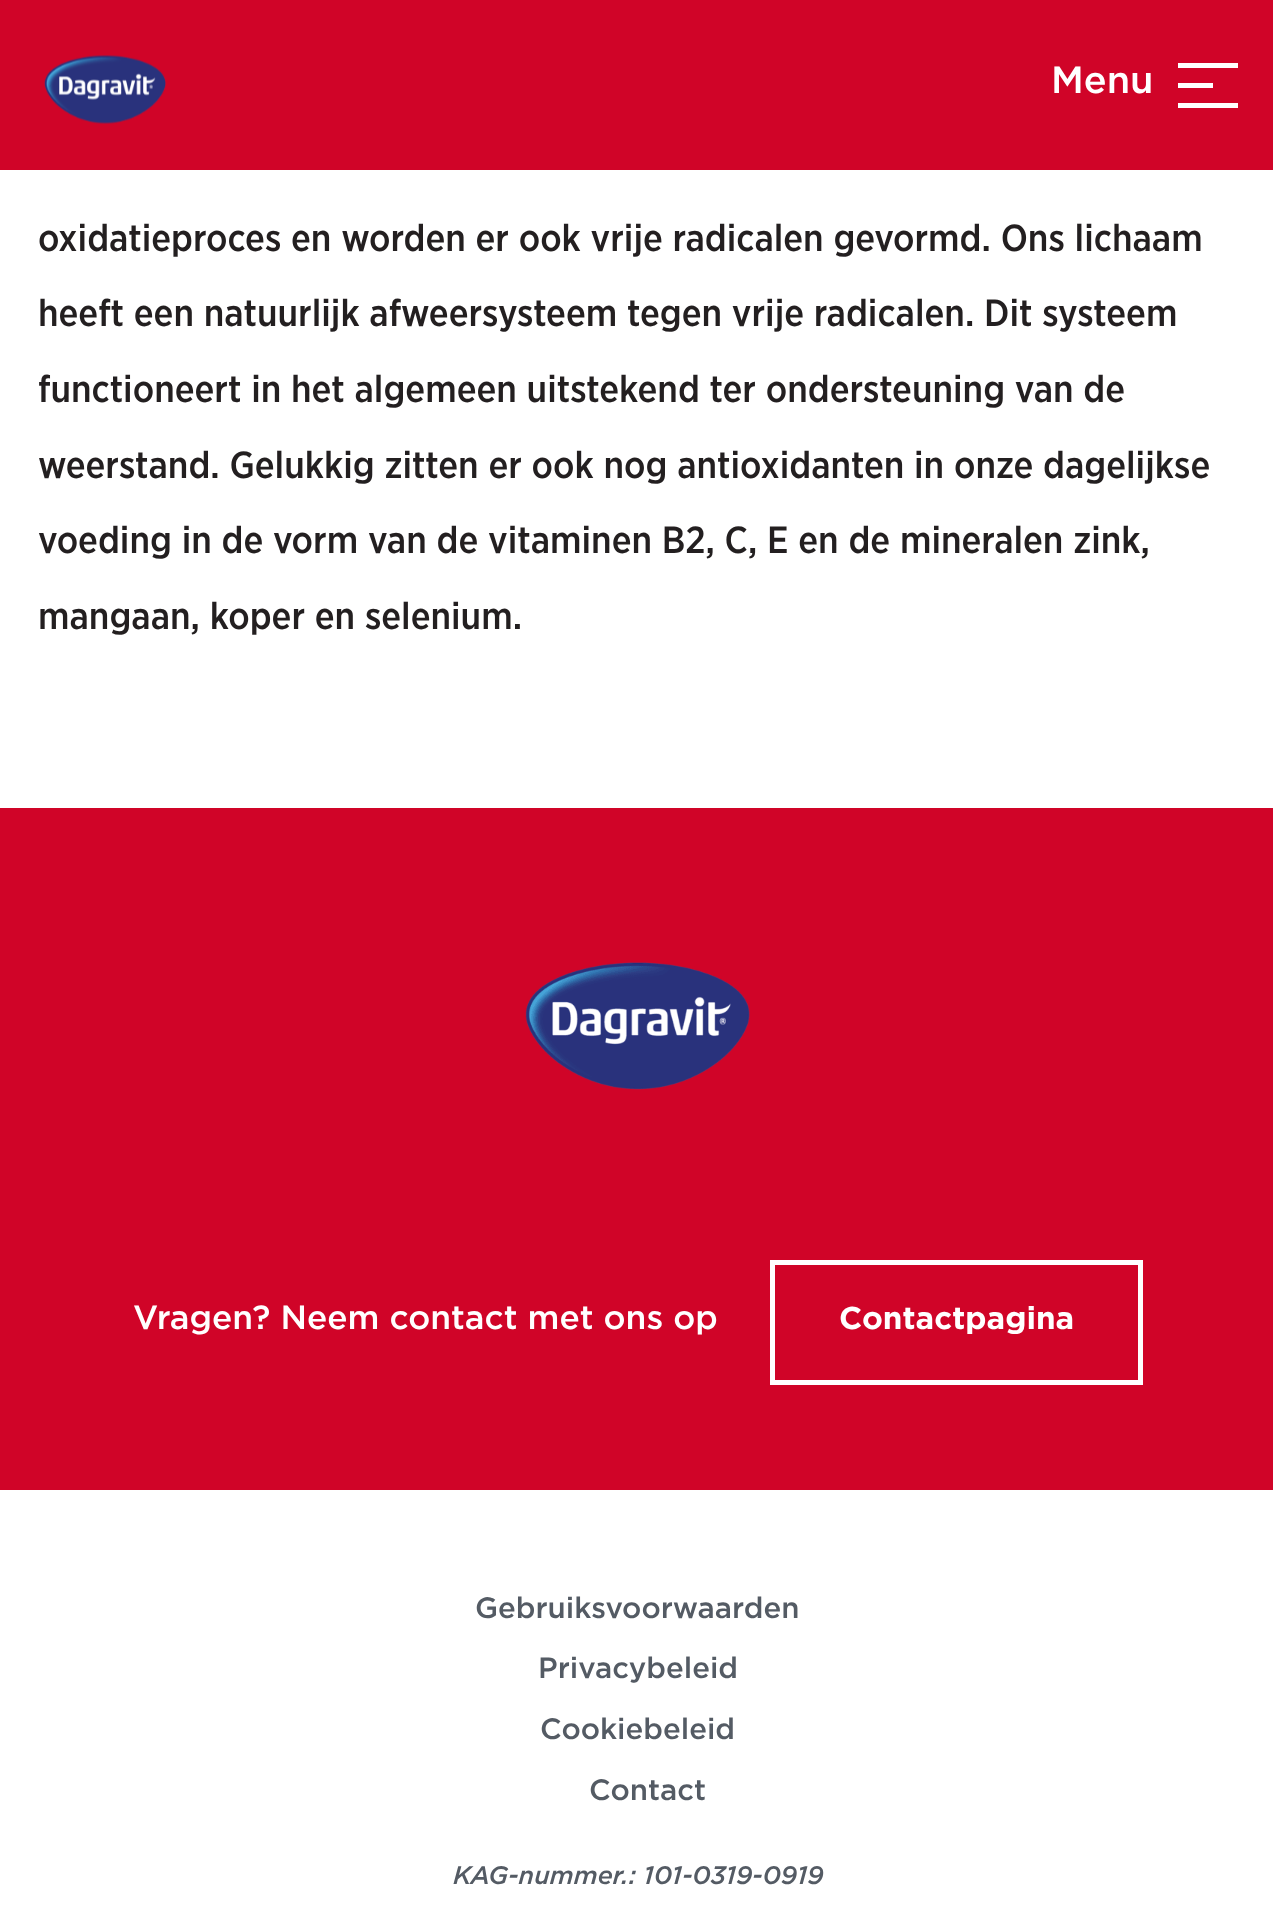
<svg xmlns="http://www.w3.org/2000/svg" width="1273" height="1926">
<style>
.a{font:500 37.8px Gotham;fill:#fff}
.b{font:500 37.8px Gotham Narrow;fill:#231f20}
.c{font:500 33.6px Gotham;fill:#fff}
.d{font:bold 31.5px Gotham;fill:#fff}
.e{font:500 29.4px Gotham;fill:#545b64}
.f{font:italic 500 25.25px Gotham;fill:#545b64}
</style>
<rect width="100%" height="100%" fill="#fff"/>
<path fill="#d00428" d="M0 0h1273v170H0z"/>
<image href="1.png" x="44" y="55" width="122" height="69"/>
<path fill="#fff" d="M1178 83h35v5H1178z"/>
<path fill="#fff" d="M1178 63h60v5H1178z"/>
<path fill="#fff" d="M1178 103h60v5H1178z"/>
<path fill="#d00428" d="M0 808h1273v682H0z"/>
<image href="2.png" x="525" y="962" width="225" height="128"/>
<path fill="none" stroke="#fff" stroke-width="5" d="M772.5 1262.5h368v120H772.5z"/>
<text class="a" x="1051" y="93">Menu</text>
<text class="b" x="38" y="251">oxidatieproces en worden er ook vrije radicalen gevormd. Ons lichaam</text>
<text class="b" x="38" y="326">heeft een natuurlijk afweersysteem tegen vrije radicalen. Dit systeem</text>
<text class="b" x="38" y="402">functioneert in het algemeen uitstekend ter ondersteuning van de</text>
<text class="b" x="38" y="478">weerstand. Gelukkig zitten er ook nog antioxidanten in onze dagelijkse</text>
<text class="b" x="38" y="553">voeding in de vorm van de vitaminen B2, C, E en de mineralen zink,</text>
<text class="b" x="38" y="629">mangaan, koper en selenium.</text>
<text class="c" x="133" y="1329">Vragen? Neem contact met ons op</text>
<text class="d" x="839" y="1329">Contactpagina</text>
<text class="e" x="475" y="1618">Gebruiksvoorwaarden</text>
<text class="e" x="538" y="1678">Privacybeleid</text>
<text class="e" x="540" y="1739">Cookiebeleid</text>
<text class="e" x="589" y="1800">Contact</text>
<text class="f" x="453" y="1884">KAG-nummer.: 101-0319-0919</text>
</svg>
